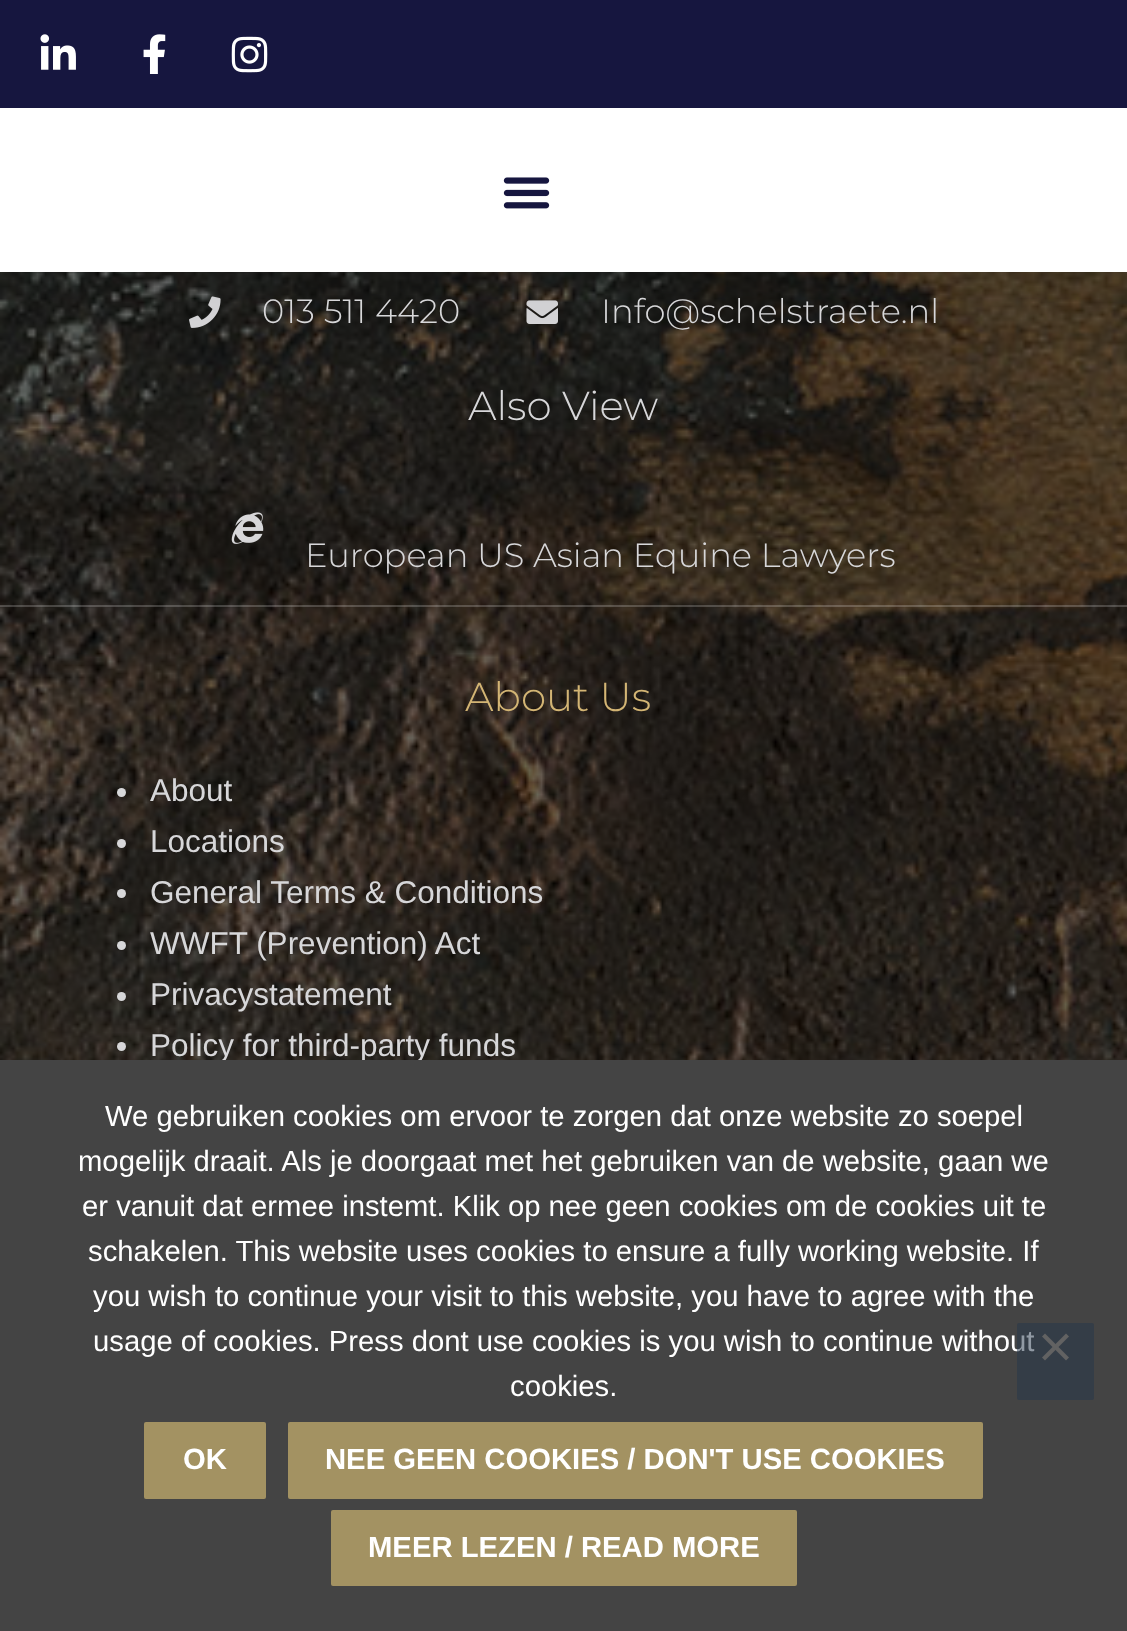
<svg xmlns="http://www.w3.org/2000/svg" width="1127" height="1631">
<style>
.a{font:300 33.75px Montserrat;fill:#d7d7d9}
.b{font:300 40.5px Montserrat;fill:#d7d7d9}
.c{font:300 40.5px Montserrat;fill:#d3b574}
.d{font:31.5px Liberation Sans;fill:#d7d7d9}
.e{font:29.25px Liberation Sans;fill:#fff}
.f{font:bold 29.25px Liberation Sans;fill:#fff}
</style>
<rect width="100%" height="100%" fill="#fff"/>
<image href="5.png" x="0" y="272" width="1127" height="788"/>
<image href="6.png" x="189" y="296" width="32" height="32"/>
<image href="7.png" x="526" y="300" width="32" height="24"/>
<path fill="#0000001a" filter="blur(34px)" d="M0 11h1127v273H0z"/>
<path fill="#16163f" d="M0 0h1127v108H0z"/>
<image href="1.png" x="40" y="34" width="36" height="36"/>
<image href="2.png" x="143" y="34" width="23" height="40"/>
<image href="3.png" x="231" y="36" width="37" height="37"/>
<path fill="#fff" d="M0 108h1127v164H0z"/>
<image href="4.png" x="503" y="177" width="47" height="32"/>
<image href="8.png" x="231" y="512" width="33" height="32"/>
<path fill="#ffffff33" d="M0 605h1127v2H0z"/>
<circle fill="#d7d7d9" cx="121.5" cy="792.5" r="4.5"/>
<circle fill="#d7d7d9" cx="121.5" cy="843.5" r="4.5"/>
<circle fill="#d7d7d9" cx="121.5" cy="893.5" r="4.5"/>
<circle fill="#d7d7d9" cx="121.5" cy="945.5" r="4.5"/>
<circle fill="#d7d7d9" cx="121.5" cy="996.5" r="4.5"/>
<circle fill="#d7d7d9" cx="121.5" cy="1046.5" r="4.5"/>
<text class="a" x="262" y="323">013 511 4420</text>
<text class="a" x="601" y="323">Info@schelstraete.nl</text>
<text class="b" x="468" y="420">Also View</text>
<text class="a" x="305" y="567">European US Asian Equine Lawyers</text>
<text class="c" x="465" y="711">About Us</text>
<text class="d" x="150" y="801">About</text>
<text class="d" x="150" y="852">Locations</text>
<text class="d" x="150" y="903">General Terms &amp; Conditions</text>
<text class="d" x="150" y="954">WWFT (Prevention) Act</text>
<text class="d" x="150" y="1005">Privacystatement</text>
<text class="d" x="150" y="1056">Policy for third-party funds</text>
<path fill="#444" d="M0 1060h1127v571H0z"/>
<text class="e" x="105" y="1126">We gebruiken cookies om ervoor te zorgen dat onze website zo soepel</text>
<text class="e" x="78" y="1171">mogelijk draait. Als je doorgaat met het gebruiken van de website, gaan we</text>
<text class="e" x="82" y="1216">er vanuit dat ermee instemt. Klik op nee geen cookies om de cookies uit te</text>
<text class="e" x="88" y="1261">schakelen. This website uses cookies to ensure a fully working website. If</text>
<text class="e" x="93" y="1306">you wish to continue your visit to this website, you have to agree with the</text>
<text class="e" x="93" y="1351">usage of cookies. Press dont use cookies is you wish to continue without</text>
<text class="e" x="510" y="1396">cookies.</text>
<rect fill="#24354980" x="1017" y="1323" width="77" height="77" rx="2"/>
<path fill="#626262" d="M1066 1333.5l3 3l-24 24l-3-3z"/>
<path fill="#626262" d="M1042 1336.5l3-3l24 24l-3 3z"/>
<rect fill="#a39262" x="144" y="1422" width="122" height="77" rx="2"/>
<text class="f" x="183" y="1469">OK</text>
<rect fill="#a39262" x="288" y="1422" width="695" height="77" rx="2"/>
<text class="f" x="325" y="1469">NEE GEEN COOKIES / DON'T USE COOKIES</text>
<rect fill="#a39262" x="331" y="1510" width="466" height="76" rx="2"/>
<text class="f" x="368" y="1557">MEER LEZEN / READ MORE</text>
</svg>
